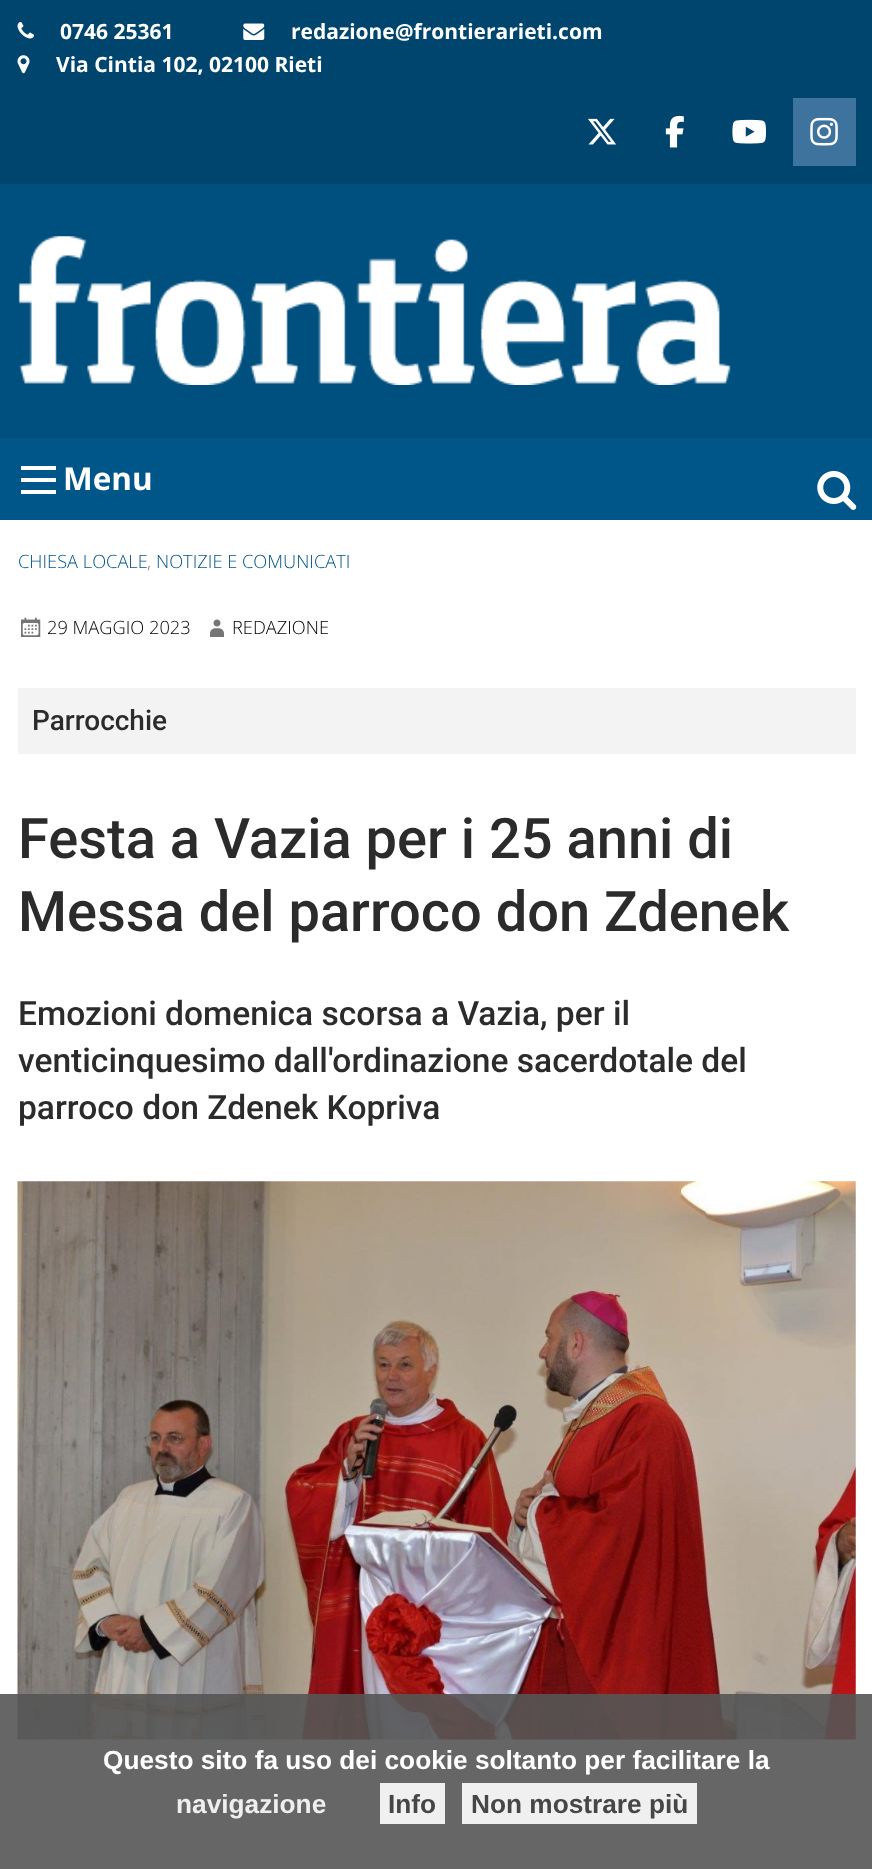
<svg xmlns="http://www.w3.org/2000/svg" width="872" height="1869">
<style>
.a{font:bold 21px Open Sans;fill:#fff}
.b{font:bold 31.5px Open Sans;fill:#fff}
.c{font:300 18.25px Open Sans;fill:#005689}
.d{font:300 18.25px Open Sans;fill:#757575}
.e{font:300 18.25px Open Sans;fill:#000}
.f{font:500 28px Roboto;fill:#2b2b2b}
.g{font:500 56px Roboto;fill:#2b2b2b}
.h{font:500 33.6px Roboto;fill:#2b2b2b}
.i{font:bold 26.25px Liberation Sans;fill:#fff}
.j{font:bold 26.25px Liberation Sans;fill:#efefef}
.k{font:bold 26.25px Liberation Sans;fill:#464646}
</style>
<rect width="100%" height="100%" fill="#fff"/>
<path fill="#00507f" d="M0 184h872v254H0z"/>
<path fill="#00456e" d="M0 0h872v184H0z"/>
<image href="1.png" x="17" y="22" width="17" height="17"/>
<image href="2.png" x="243" y="23" width="22" height="17"/>
<image href="3.png" x="17" y="55" width="13" height="19"/>
<image href="4.png" x="588" y="118" width="29" height="27"/>
<image href="5.png" x="665" y="115" width="19" height="33"/>
<image href="6.png" x="732" y="119" width="34" height="25"/>
<path fill="#3d739c" d="M793 98h63v68H793z"/>
<image href="7.png" x="810" y="117" width="28" height="29"/>
<image href="8.png" x="18" y="236" width="713" height="149"/>
<path fill="#005689" d="M0 438h872v82H0z"/>
<image href="9.png" x="817" y="471" width="40" height="39"/>
<path fill="#fefefe" d="M21 490h35v4H21z"/>
<path fill="#fefefe" d="M21 478h35v4H21z"/>
<path fill="#fefefe" d="M21 466h35v4H21z"/>
<image href="10.png" x="21" y="617" width="20" height="20"/>
<image href="11.png" x="210" y="619" width="14" height="18"/>
<path fill="#f3f3f3" d="M18 688h838v66H18z"/>
<image href="12.png" x="17" y="1181" width="839" height="559"/>
<path fill="#555555e6" d="M0 1694h872v175H0z"/>
<path fill="#ffffffe6" d="M380 1783h65v41H380z"/>
<path fill="#ffffffe6" d="M462 1783h235v41H462z"/>
<text class="a" x="60" y="39">0746 25361</text>
<text class="a" x="291" y="39">redazione@frontierarieti.com</text>
<text class="a" x="56" y="72">Via Cintia 102, 02100 Rieti</text>
<text class="b" x="63" y="490">Menu</text>
<text class="c" x="18" y="568">CHIESA LOCALE</text>
<text class="d" x="147" y="568">,</text>
<text class="c" x="156" y="568">NOTIZIE E COMUNICATI</text>
<text class="e" x="47" y="634">29 MAGGIO 2023</text>
<text class="e" x="232" y="634">REDAZIONE</text>
<text class="f" x="32" y="730">Parrocchie</text>
<text class="g" x="18" y="858">Festa a Vazia per i 25 anni di</text>
<text class="g" x="18" y="931">Messa del parroco don Zdenek</text>
<text class="h" x="18" y="1025">Emozioni domenica scorsa a Vazia, per il</text>
<text class="h" x="18" y="1072">venticinquesimo dall'ordinazione sacerdotale del</text>
<text class="h" x="18" y="1119">parroco don Zdenek Kopriva</text>
<text class="i" x="103" y="1769">Questo sito fa uso dei cookie soltanto per facilitare la</text>
<text class="j" x="176" y="1813">navigazione</text>
<text class="k" x="388" y="1813">Info</text>
<text class="k" x="471" y="1813">Non mostrare più</text>
</svg>
